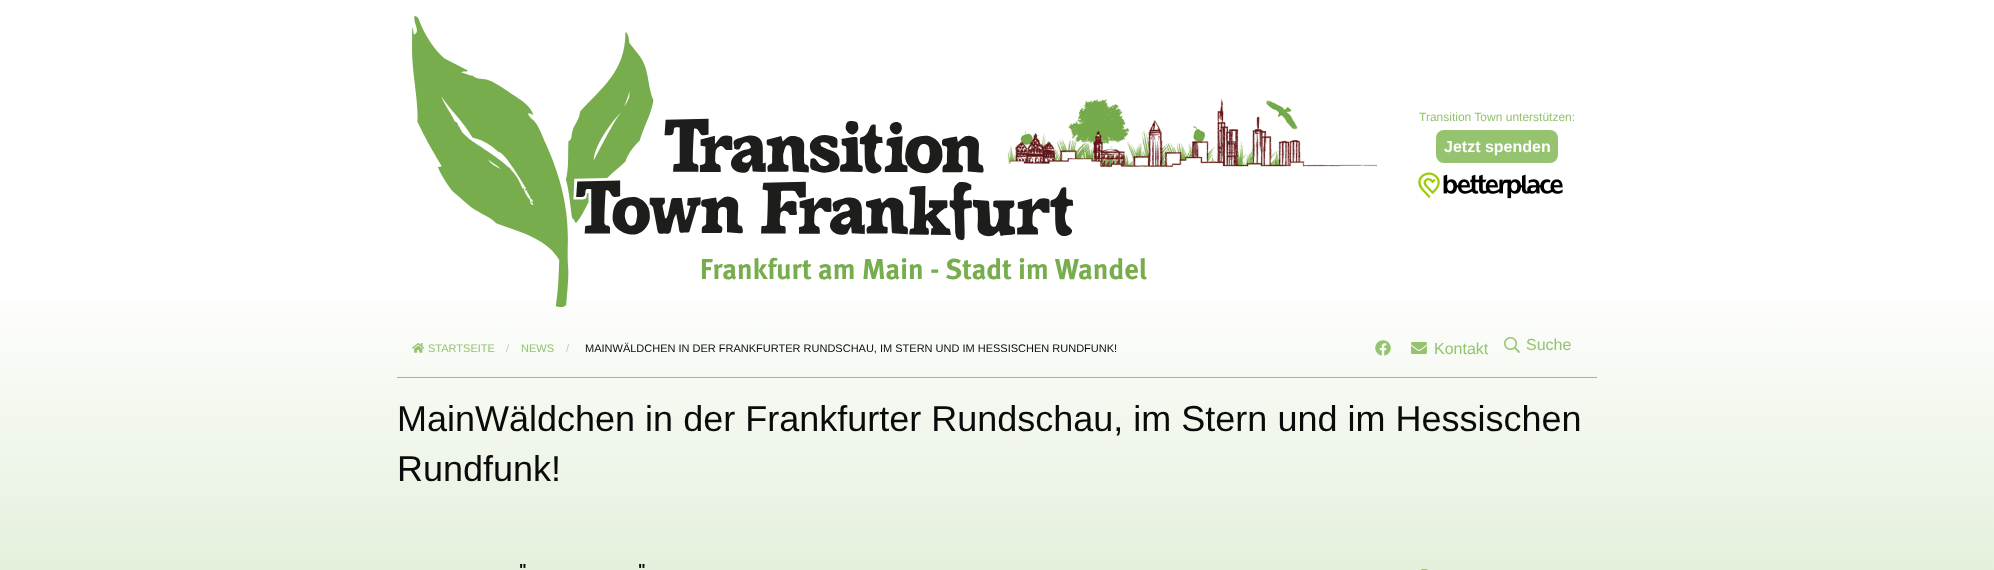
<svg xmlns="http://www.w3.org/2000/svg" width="1994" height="570">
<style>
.a{font:12px Liberation Sans;fill:#95c370}
.b{font:bold 16px Liberation Sans;fill:#fefefe}
.c{font:11px Liberation Sans;fill:#95c370}
.d{font:11px Liberation Sans;fill:#cacaca}
.e{font:11px Liberation Sans;fill:#0a0a0a}
.f{font:16px Liberation Sans;fill:#95c370}
.g{font:36px Liberation Sans;fill:#0a0a0a}
.h{font:bold 16px Liberation Sans;fill:#0a0a0a}
</style>
<defs>
<linearGradient id="g1" gradientUnits="userSpaceOnUse" x1="997" y1="0" x2="997" y2="570"><stop offset="0.5" stop-color="#fefefe"/><stop offset="1" stop-color="#e5f0dc"/></linearGradient>
</defs>
<rect width="100%" height="100%" fill="#fff"/>
<path fill="url(#g1)" d="M0 298h1994v272H0z"/>
<image href="1.png" x="412" y="16" width="965" height="291"/>
<rect fill="#95c370" x="1436" y="130" width="122" height="33" rx="8"/>
<image href="2.png" x="1418" y="172" width="145" height="27"/>
<image href="3.png" x="412" y="343" width="13" height="10"/>
<image href="4.png" x="1375" y="340" width="16" height="16"/>
<image href="5.png" x="1411" y="342" width="16" height="12"/>
<image href="6.png" x="1504" y="337" width="16" height="16"/>
<path fill="#95c370" d="M397 377h1200v1H397z"/>
<image href="7.png" x="1420" y="569" width="8" height="1"/>
<text class="a" x="1419" y="121">Transition Town unterstützen:</text>
<text class="b" x="1444" y="152">Jetzt spenden</text>
<text class="c" x="428" y="352">STARTSEITE</text>
<text class="d" x="506" y="352">/</text>
<text class="c" x="521" y="352">NEWS</text>
<text class="d" x="566" y="352">/</text>
<text class="e" x="585" y="352">MAINWÄLDCHEN IN DER FRANKFURTER RUNDSCHAU, IM STERN UND IM HESSISCHEN RUNDFUNK!</text>
<text class="f" x="1434" y="354">Kontakt</text>
<text class="f" x="1526" y="350">Suche</text>
<text class="g" x="397" y="431">MainWäldchen in der Frankfurter Rundschau, im Stern und im Hessischen</text>
<text class="g" x="397" y="481">Rundfunk!</text>
<text class="h" x="519" y="575">"</text>
<text class="h" x="638" y="575">"</text>
</svg>
